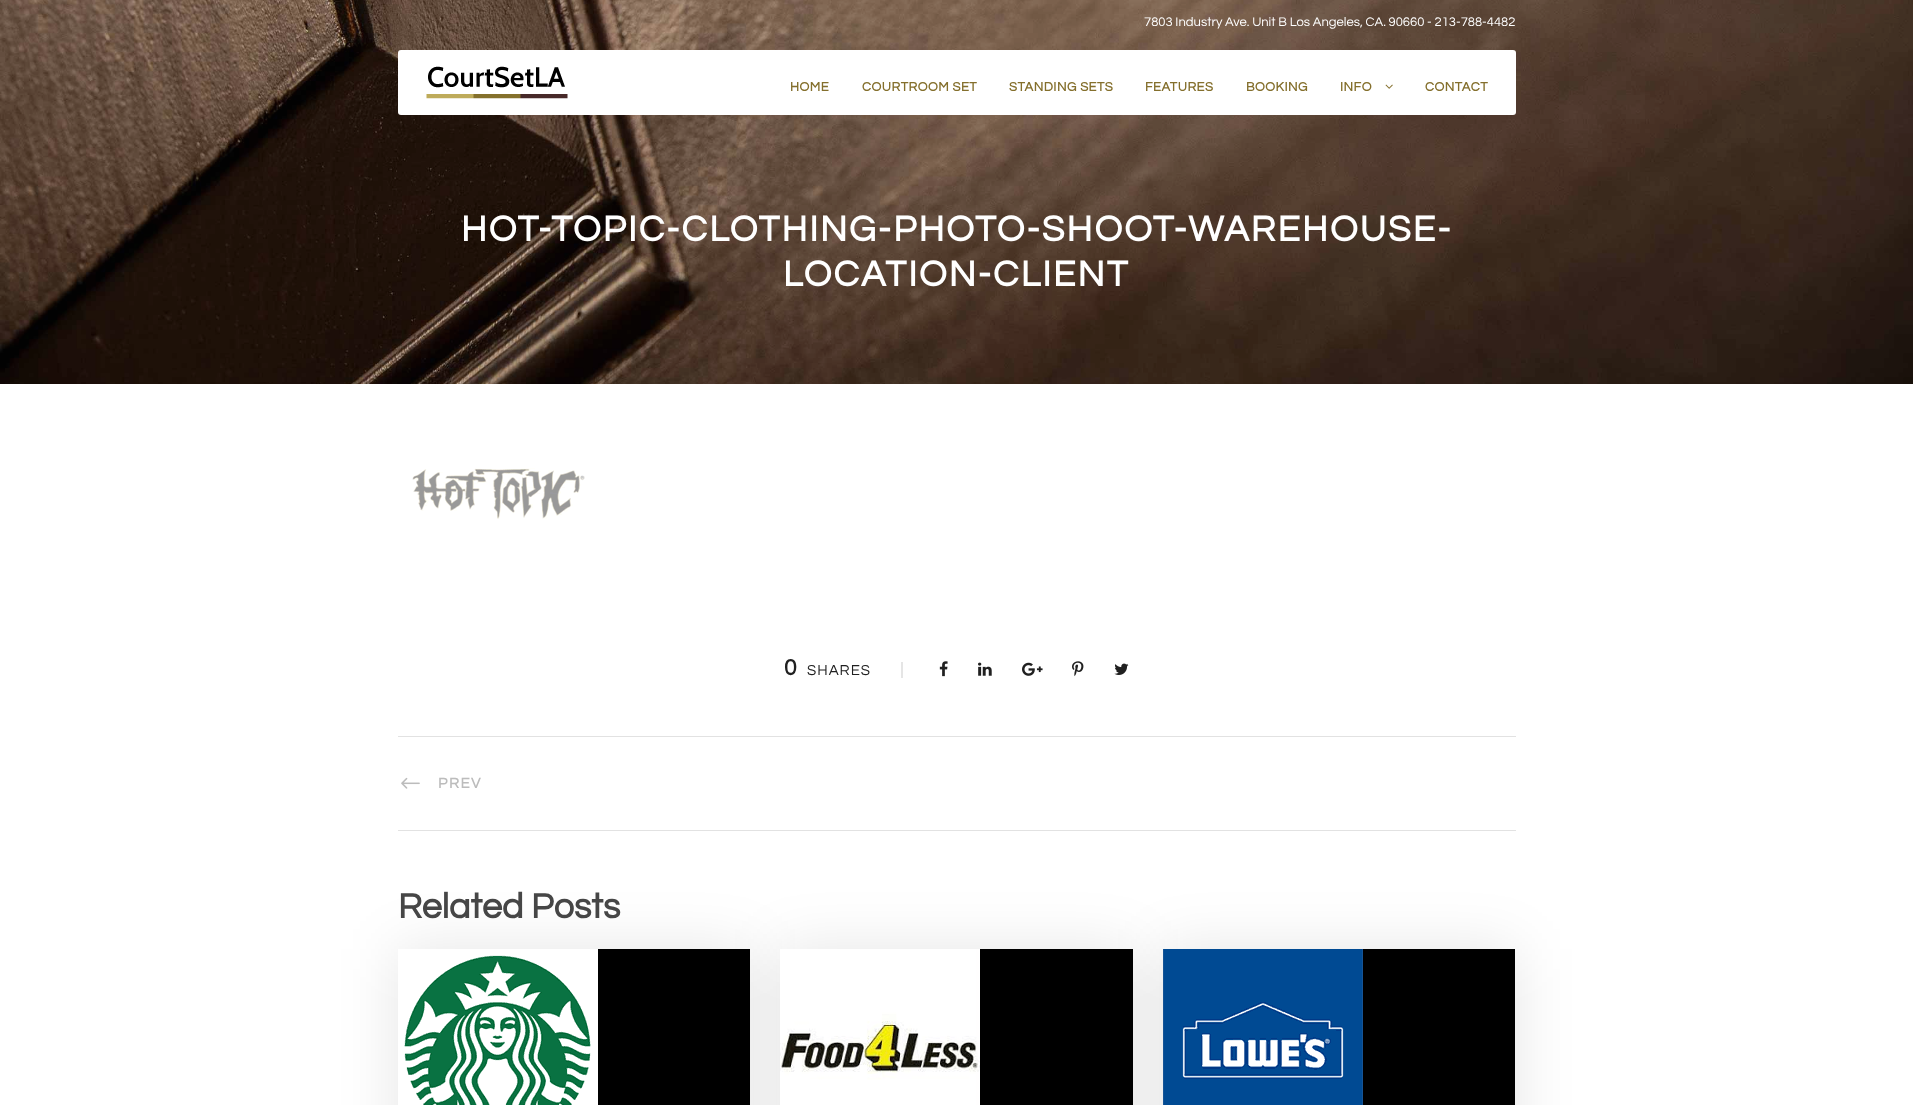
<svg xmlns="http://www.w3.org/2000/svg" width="1913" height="1105">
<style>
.a{font:13px Questrial;fill:#fff}
.b{font:bold 13px Questrial;letter-spacing:0.5px;fill:#846f2c}
.c{font:bold 37px Questrial;letter-spacing:2px;fill:#fff}
.d{font:bold 23px Questrial;fill:#202020}
.e{font:15px Questrial;letter-spacing:1px;fill:#202020}
.f{font:bold 15px Questrial;letter-spacing:1.5px;fill:#bcbcbc}
.g{font:bold 36px Questrial;fill:#464646}
</style>
<rect width="100%" height="100%" fill="#fff"/>
<image href="3.png" x="0" y="0" width="1913" height="384"/>
<rect fill="#fff" x="398" y="50" width="1118" height="65" rx="3"/>
<image href="1.png" x="426" y="66" width="142" height="33"/>
<image href="2.png" x="1385" y="84" width="8" height="5"/>
<image href="4.png" x="412" y="468" width="173" height="51"/>
<path fill="#e5e5e5" d="M901 662h2v16H901z"/>
<image href="5.png" x="939" y="661" width="9" height="16"/>
<image href="6.png" x="978" y="662" width="14" height="14"/>
<image href="7.png" x="1022" y="662" width="21" height="14"/>
<image href="8.png" x="1072" y="661" width="12" height="16"/>
<image href="9.png" x="1114" y="663" width="15" height="12"/>
<path fill="#e2e2e2" d="M398 736h1118v1H398z"/>
<path fill="#e2e2e2" d="M398 830h1118v1H398z"/>
<image href="10.png" x="401" y="777" width="19" height="12"/>
<path fill="#0000001a" filter="blur(30px)" d="M398 949h352v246H398z"/>
<path fill="#0000001a" filter="blur(30px)" d="M780 949h353v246H780z"/>
<path fill="#000" d="M598 949h152v156H598z"/>
<image href="11.png" x="398" y="949" width="200" height="156"/>
<path fill="#0000001a" filter="blur(30px)" d="M1163 949h352v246H1163z"/>
<path fill="#000" d="M980 949h153v156H980z"/>
<image href="12.png" x="780" y="949" width="200" height="156"/>
<path fill="#000" d="M1363 949h152v156H1363z"/>
<image href="13.png" x="1163" y="949" width="200" height="156"/>
<text class="a" x="1144" y="26">7803 Industry Ave. Unit B Los Angeles, CA. 90660 - 213-788-4482</text>
<text class="b" x="790" y="91">HOME</text>
<text class="b" x="862" y="91">COURTROOM SET</text>
<text class="b" x="1009" y="91">STANDING SETS</text>
<text class="b" x="1145" y="91">FEATURES</text>
<text class="b" x="1246" y="91">BOOKING</text>
<text class="b" x="1340" y="91">INFO</text>
<text class="b" x="1425" y="91">CONTACT</text>
<text class="c" x="461" y="241">HOT-TOPIC-CLOTHING-PHOTO-SHOOT-WAREHOUSE-</text>
<text class="c" x="783" y="286">LOCATION-CLIENT</text>
<text class="d" x="784" y="675">0</text>
<text class="e" x="807" y="675">SHARES</text>
<text class="f" x="438" y="788">PREV</text>
<text class="g" x="398" y="918">Related Posts</text>
</svg>
